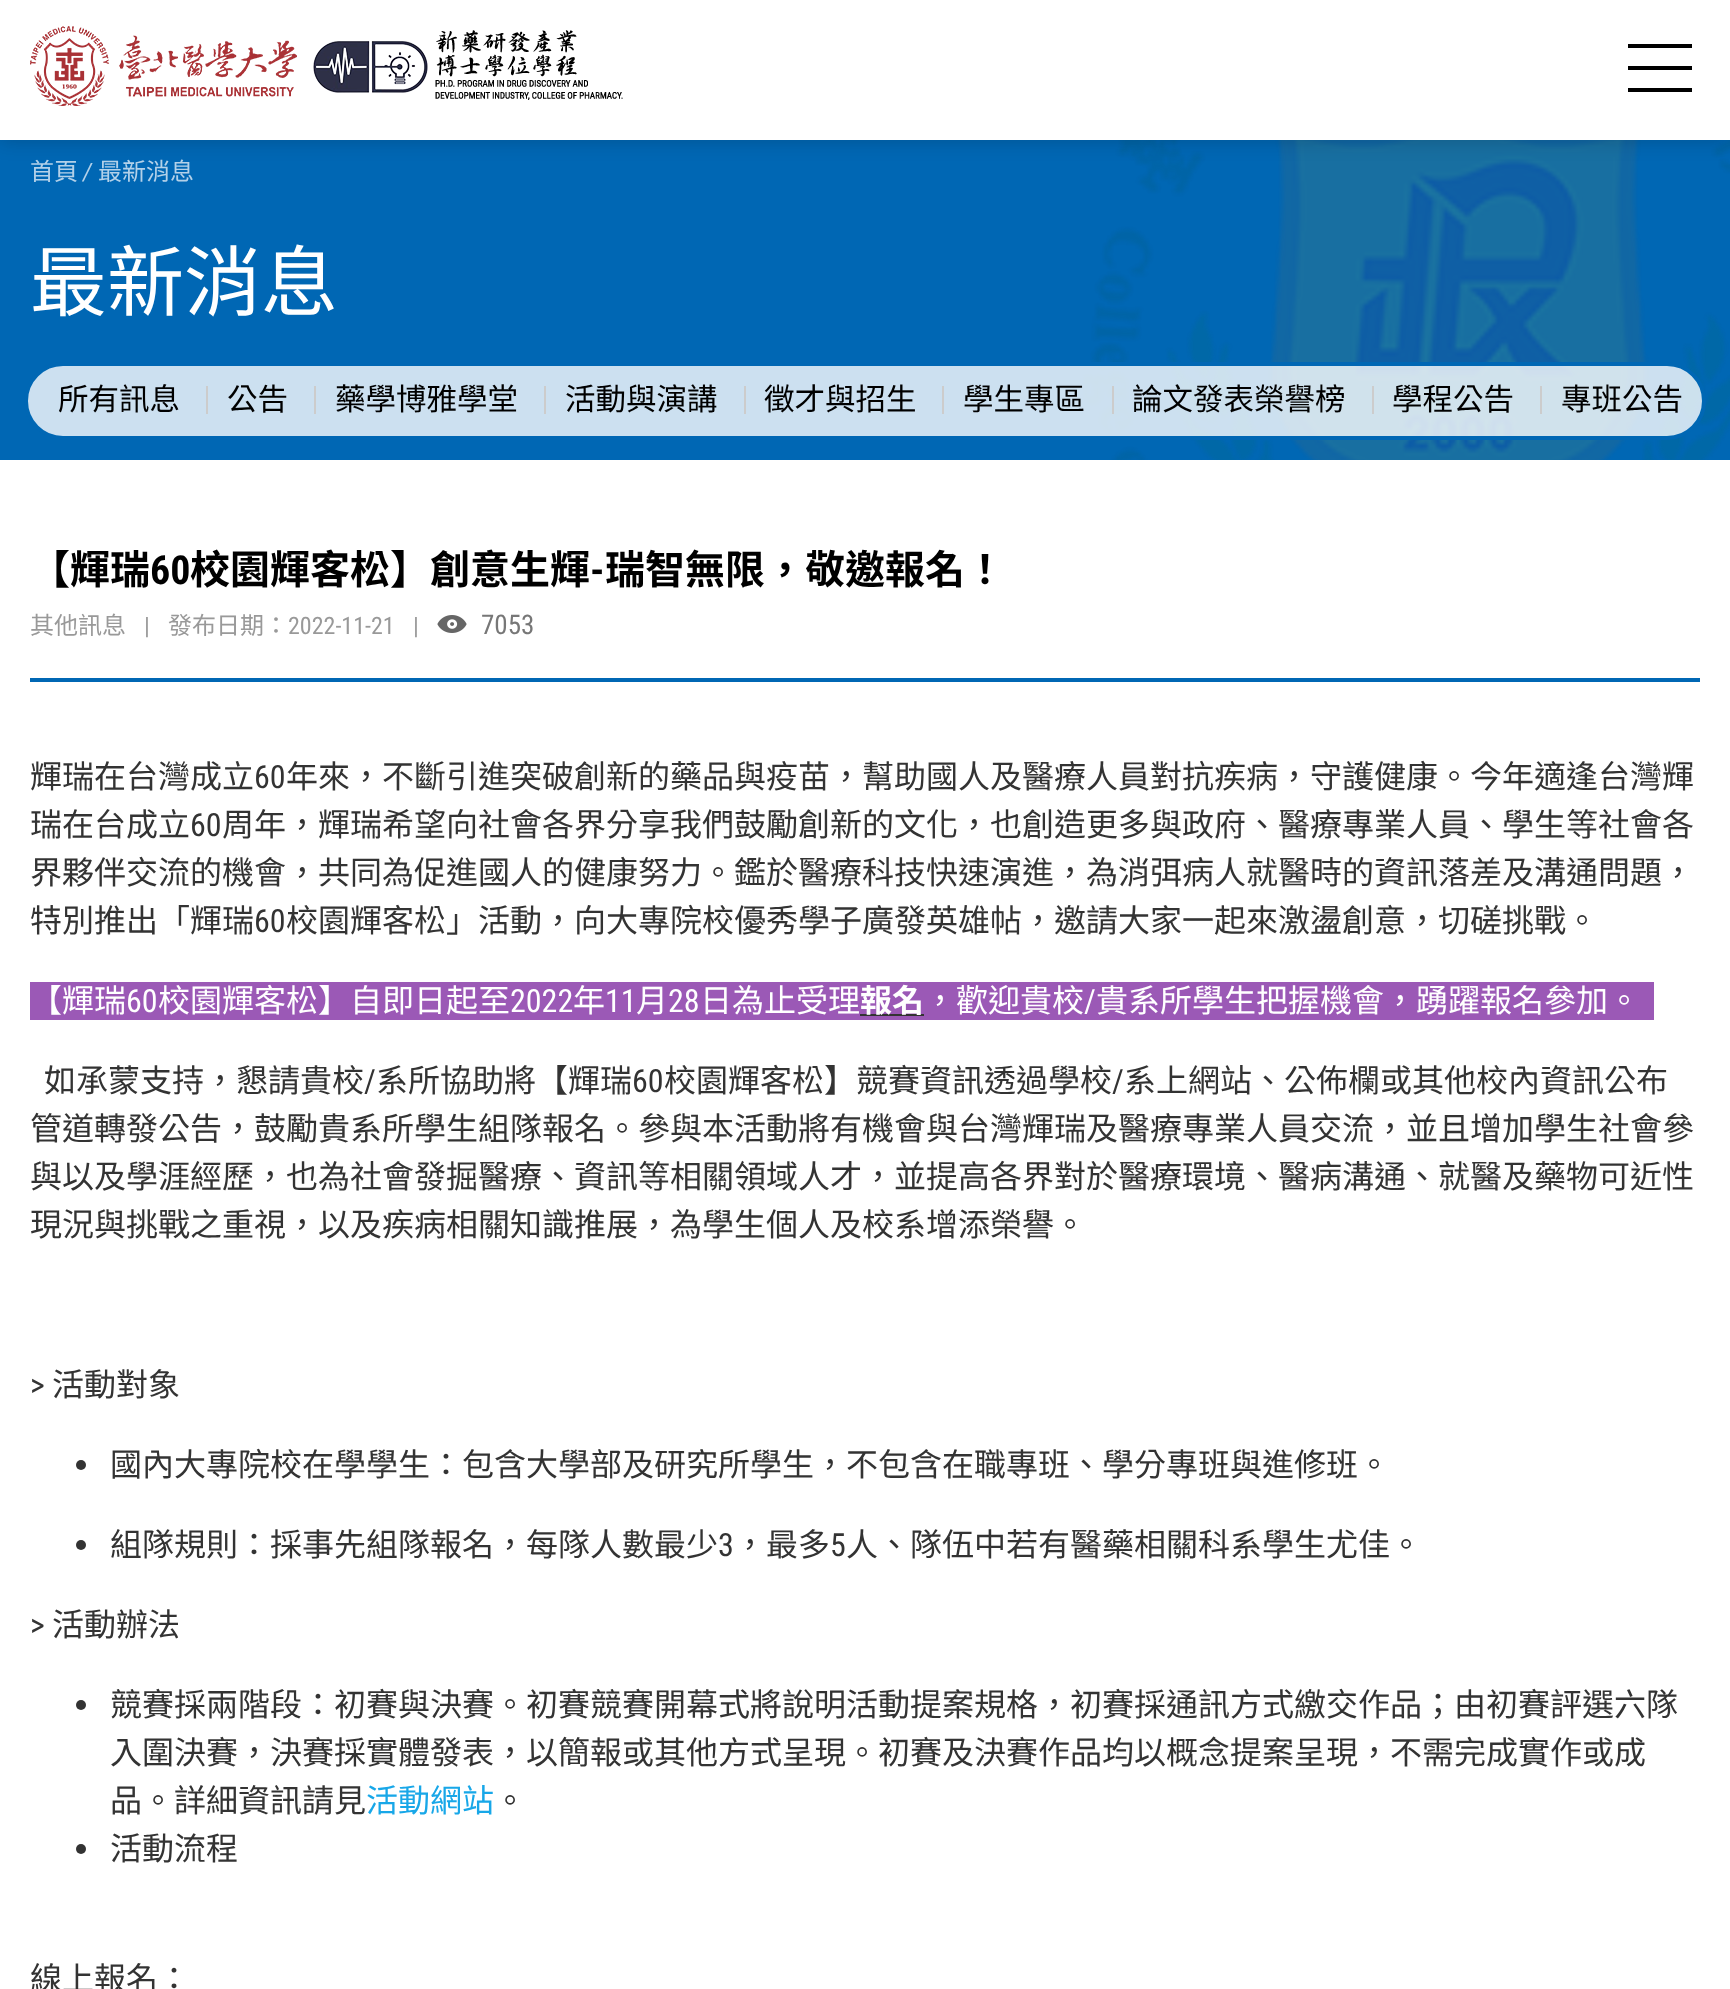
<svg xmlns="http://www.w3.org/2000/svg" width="1730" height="1989">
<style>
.a{font:24px Noto Sans TC;fill:#b3d1e9}
.b{font:italic 24px Roboto Condensed;fill:#b3d1e9}
.c{font:77px Noto Sans TC;fill:#fff}
.d{font:30.5px Noto Sans TC;fill:#000}
.e{font:bold 40px Noto Sans TC;fill:#000}
.f{font:bold 40px Roboto Condensed;fill:#000}
.g{font:24px Noto Sans TC;fill:#999}
.h{font:24px Roboto Condensed;fill:#999}
.i{font:27px Roboto Condensed;fill:#777}
.j{font:32px Noto Sans TC;fill:#333}
.k{font:32px Roboto Condensed;fill:#333}
.l{font:32px Noto Sans TC;fill:#fff}
.m{font:32px Roboto Condensed;fill:#fff}
.n{font:bold 32px Noto Sans TC;fill:#fff}
.o{font:32px Noto Sans TC;fill:#18a7e8}
</style>
<rect width="100%" height="100%" fill="#0067b4"/>
<image href="3.png" x="1083" y="140" width="647" height="320"/>
<path fill="#00000033" filter="blur(10px)" d="M0 0h1730v140H0z"/>
<path fill="#fff" d="M0 0h1730v140H0z"/>
<image href="1.png" x="30" y="26" width="267" height="80"/>
<image href="2.png" x="313" y="30" width="310" height="70"/>
<path fill="#000" d="M1628 44h64v4H1628z"/>
<path fill="#000" d="M1628 66h64v4H1628z"/>
<path fill="#000" d="M1628 88h64v4H1628z"/>
<rect fill="#ffffffcc" stroke="#0067b4" stroke-width="4" x="26" y="364" width="1678" height="74" rx="37"/>
<path fill="#ccc" d="M206 386h2v28H206z"/>
<path fill="#ccc" d="M314 386h2v28H314z"/>
<path fill="#ccc" d="M544 386h2v28H544z"/>
<path fill="#ccc" d="M744 386h2v28H744z"/>
<path fill="#ccc" d="M942 386h2v28H942z"/>
<path fill="#ccc" d="M1112 386h2v28H1112z"/>
<path fill="#ccc" d="M1372 386h2v28H1372z"/>
<path fill="#ccc" d="M1540 386h2v28H1540z"/>
<path fill="#fff" d="M0 460h1730v1529H0z"/>
<path fill="#0067b4" d="M30 678h1670v4H30z"/>
<image href="4.png" x="437" y="615" width="30" height="18"/>
<path fill="#9b59b6" d="M30 982h1624v38H30z"/>
<path fill="#333" d="M860 1014h64v2H860z"/>
<circle fill="#333" cx="81" cy="1465" r="5"/>
<circle fill="#333" cx="81" cy="1545" r="5"/>
<circle fill="#333" cx="81" cy="1705" r="5"/>
<circle fill="#333" cx="81" cy="1849" r="5"/>
<text class="a" x="30" y="180">首頁</text>
<text class="b" x="83" y="180">/</text>
<text class="a" x="98" y="180">最新消息</text>
<text class="c" x="30" y="310">最新消息</text>
<text class="d" x="58" y="410">所有訊息</text>
<text class="d" x="227" y="410">公告</text>
<text class="d" x="335" y="410">藥學博雅學堂</text>
<text class="d" x="565" y="410">活動與演講</text>
<text class="d" x="764" y="410">徵才與招生</text>
<text class="d" x="963" y="410">學生專區</text>
<text class="d" x="1132" y="410">論文發表榮譽榜</text>
<text class="d" x="1392" y="410">學程公告</text>
<text class="d" x="1561" y="410">專班公告</text>
<text class="e" x="30" y="584">【輝瑞</text>
<text class="f" x="150" y="584">60</text>
<text class="e" x="190" y="584">校園輝客松】創意生輝</text>
<text class="f" x="590" y="584">-</text>
<text class="e" x="605" y="584">瑞智無限，敬邀報名！</text>
<text class="g" x="30" y="634">其他訊息</text>
<text class="h" x="144" y="634">|</text>
<text class="g" x="168" y="634">發布日期：</text>
<text class="h" x="288" y="634">2022-11-21</text>
<text class="h" x="413" y="634">|</text>
<text class="i" x="481" y="634">7053</text>
<text class="j" x="30" y="788">輝瑞在台灣成立</text>
<text class="k" x="254" y="788">60</text>
<text class="j" x="286" y="788">年來，不斷引進突破創新的藥品與疫苗，幫助國人及醫療人員對抗疾病，守護健康。今年適逢台灣輝</text>
<text class="j" x="30" y="836">瑞在台成立</text>
<text class="k" x="190" y="836">60</text>
<text class="j" x="222" y="836">周年，輝瑞希望向社會各界分享我們鼓勵創新的文化，也創造更多與政府、醫療專業人員、學生等社會各</text>
<text class="j" x="30" y="884">界夥伴交流的機會，共同為促進國人的健康努力。鑑於醫療科技快速演進，為消弭病人就醫時的資訊落差及溝通問題，</text>
<text class="j" x="30" y="932">特別推出「輝瑞</text>
<text class="k" x="254" y="932">60</text>
<text class="j" x="286" y="932">校園輝客松」活動，向大專院校優秀學子廣發英雄帖，邀請大家一起來激盪創意，切磋挑戰。</text>
<text class="l" x="30" y="1012">【輝瑞</text>
<text class="m" x="126" y="1012">60</text>
<text class="l" x="158" y="1012">校園輝客松】自即日起至</text>
<text class="m" x="510" y="1012">2022</text>
<text class="l" x="573" y="1012">年</text>
<text class="m" x="605" y="1012">11</text>
<text class="l" x="636" y="1012">月</text>
<text class="m" x="668" y="1012">28</text>
<text class="l" x="700" y="1012">日為止受理</text>
<text class="n" x="860" y="1012">報名</text>
<text class="l" x="924" y="1012">，歡迎貴校</text>
<text class="m" x="1084" y="1012">/</text>
<text class="l" x="1096" y="1012">貴系所學生把握機會，踴躍報名參加。</text>
<text class="j" x="44" y="1092">如承蒙支持，懇請貴校</text>
<text class="k" x="364" y="1092">/</text>
<text class="j" x="376" y="1092">系所協助將【輝瑞</text>
<text class="k" x="632" y="1092">60</text>
<text class="j" x="664" y="1092">校園輝客松】</text>
<text class="j" x="856" y="1092">競賽資訊透過學校</text>
<text class="k" x="1112" y="1092">/</text>
<text class="j" x="1124" y="1092">系上網站、公佈欄或其他校內資訊公布</text>
<text class="j" x="30" y="1140">管道轉發公告，鼓勵貴系所學生組隊報名。參與本活動將有機會與台灣輝瑞及醫療專業人員交流，並且增加學生社會參</text>
<text class="j" x="30" y="1188">與以及學涯經歷，也為社會發掘醫療、資訊等相關領域人才，並提高各界對於醫療環境、醫病溝通、就醫及藥物可近性</text>
<text class="j" x="30" y="1236">現況與挑戰之重視，以及疾病相關知識推展，為學生個人及校系增添榮譽。</text>
<text class="k" x="30" y="1396">&gt;</text>
<text class="j" x="52" y="1396">活動對象</text>
<text class="j" x="110" y="1476">國內大專院校在學學生：包含大學部及研究所學生，不包含在職專班、學分專班與進修班。</text>
<text class="j" x="110" y="1556">組隊規則：採事先組隊報名，每隊人數最少</text>
<text class="k" x="718" y="1556">3</text>
<text class="j" x="734" y="1556">，最多</text>
<text class="k" x="830" y="1556">5</text>
<text class="j" x="846" y="1556">人、隊伍中若有醫藥相關科系學生尤佳。</text>
<text class="k" x="30" y="1636">&gt;</text>
<text class="j" x="52" y="1636">活動辦法</text>
<text class="j" x="110" y="1716">競賽採兩階段：初賽與決賽。初賽競賽開幕式將說明活動提案規格，初賽採通訊方式繳交作品；由初賽評選六隊</text>
<text class="j" x="110" y="1764">入圍決賽，決賽採實體發表，以簡報或其他方式呈現。初賽及決賽作品均以概念提案呈現，不需完成實作或成</text>
<text class="j" x="110" y="1812">品。詳細資訊請見</text>
<text class="o" x="366" y="1812">活動網站</text>
<text class="j" x="494" y="1812">。</text>
<text class="j" x="110" y="1860">活動流程</text>
<text class="j" x="30" y="1990">線上報名：</text>
</svg>
